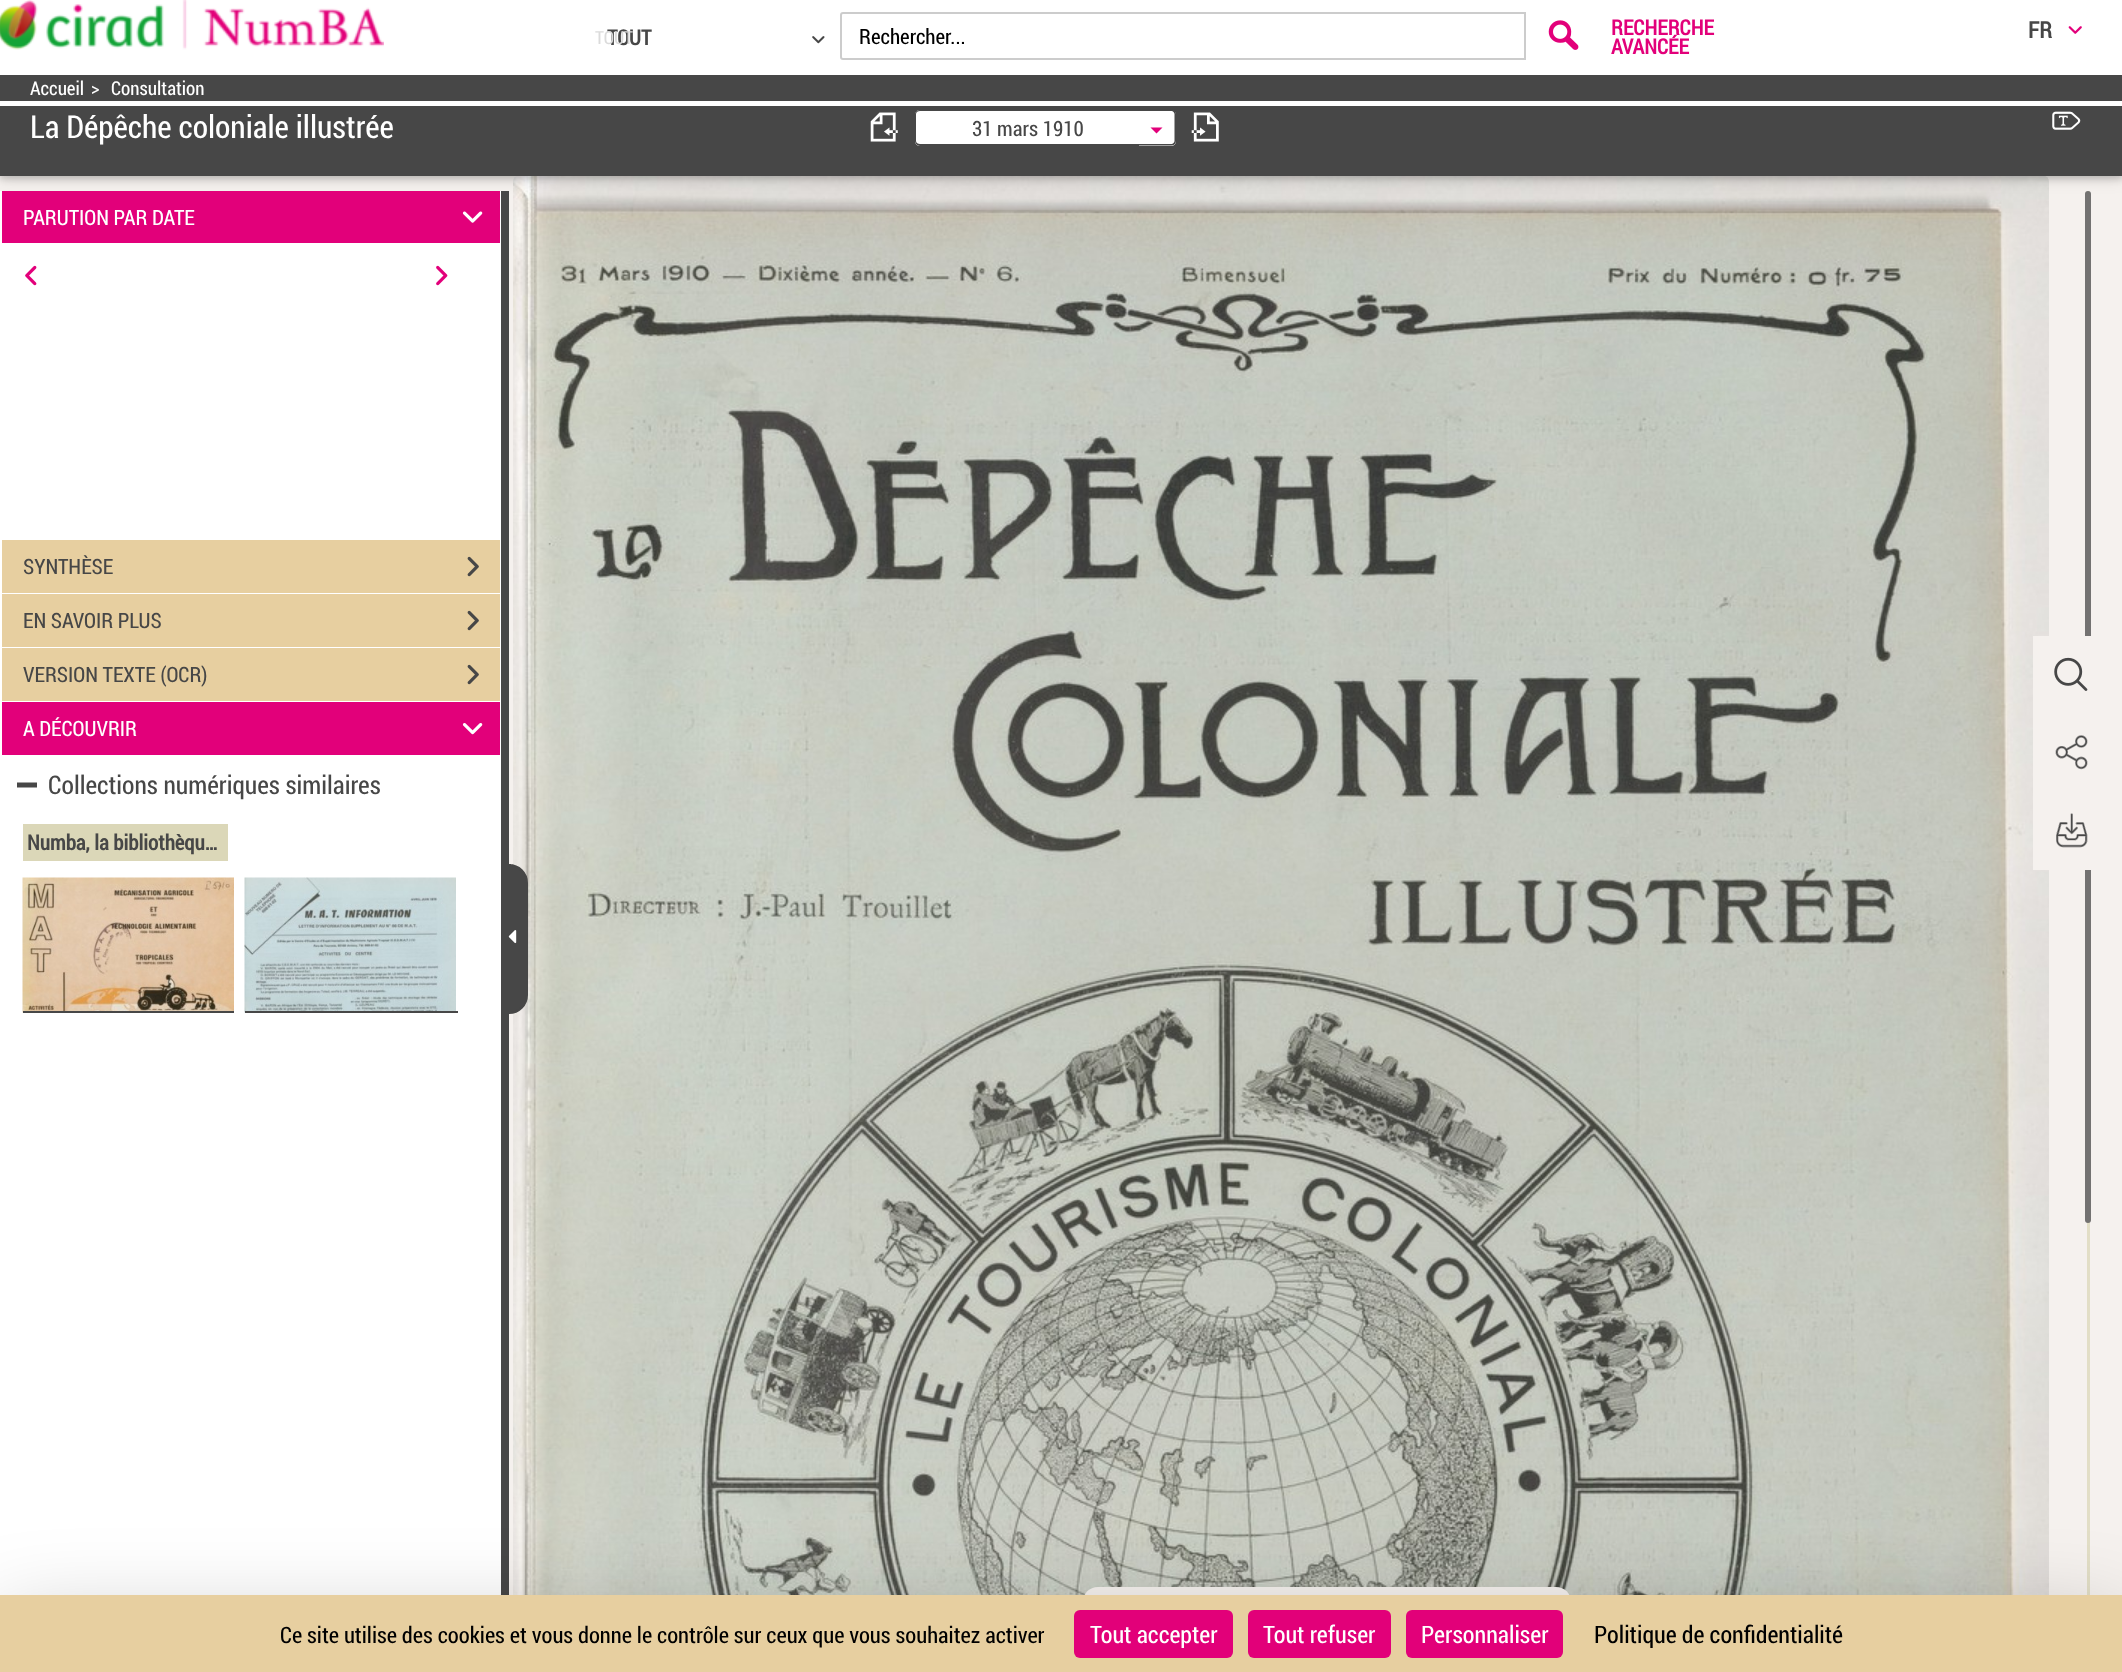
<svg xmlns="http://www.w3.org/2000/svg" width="2122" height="1672">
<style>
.a{font:bold 21px Roboto Condensed;fill:#474747}
.b{font:18px Roboto Condensed;fill:#dbdbdb}
.c{font:21px Roboto Condensed;fill:#000}
.d{font:bold 21px Roboto Condensed;fill:#e2007a}
.e{font:bold 22.5px Roboto Condensed;fill:#474747}
.f{font:19px Roboto Condensed;fill:#fff}
.g{font:31.5px Roboto Condensed;fill:#fff}
.h{font:21px Roboto Condensed;fill:#474747}
.i{font:21px Roboto Condensed;fill:#fff}
.j{font:25.5px Roboto Condensed;fill:#474747}
.k{font:22.5px Roboto Condensed;fill:#000}
.l{font:24px Roboto Condensed;fill:#fff}
.m{font:24px Roboto Condensed;fill:#000}
</style>
<rect width="100%" height="100%" fill="#f5f1ee"/>
<image href="16.png" x="513" y="176" width="1536" height="1419"/>
<rect fill="#e2dec6" x="2087" y="191" width="3" height="1467" rx="1.5"/>
<rect fill="#737271" x="2085" y="191" width="6" height="1032" rx="3"/>
<path fill="#0000001f" filter="blur(7.5px)" d="M0 78h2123v101H0z"/>
<path fill="#00000029" filter="blur(3px)" d="M0 78h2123v101H0z"/>
<path fill="#fff" d="M0 0h2122v75H0z"/>
<image href="1.png" x="0" y="0" width="384" height="50"/>
<image href="2.png" x="812" y="36" width="13" height="8"/>
<path fill="none" stroke="#ccc" stroke-width="2" d="M843 13h682v46h-682c-1 0-2-1-2-2v-42c0-1 1-2 2-2z"/>
<image href="3.png" x="1548" y="20" width="31" height="30"/>
<image href="4.png" x="2068" y="26" width="14" height="8"/>
<path fill="#474747" d="M0 75h2122v101H0z"/>
<path fill="#fff" d="M0 101h2122v5H0z"/>
<image href="5.png" x="870" y="112" width="28" height="30"/>
<path fill="#fff" d="M920 110h220v36h-220c-3 0-5-2-5-5v-26c0-3 2-5 5-5z"/>
<path fill="#474747" fill-rule="evenodd" d="M920 110h220v36h-220c-3 0-5-3-5-5v-27c0-2 2-4 5-4zm0 1h220v33h-220c-2 0-4-1-4-3v-27c0-2 2-3 4-3z"/>
<path fill="#fff" d="M1139 110h32c3 0 5 2 5 5v26c0 3-2 5-5 5h-32z"/>
<path fill="#474747" fill-rule="evenodd" d="M1138.5 109.5h33c2.5 0 4.5 2 4.5 4.5v27c0 2.5-2 4.5-4.5 4.5h-33zm0 1.5h33c1.5 0 3 1.5 3 3v27c0 1.5-1.5 3-3 3h-33z"/>
<path fill="#e2007a" d="M1150.5 127.5h12l-6 6z"/>
<image href="6.png" x="1191" y="112" width="28" height="30"/>
<image href="7.png" x="2052" y="111" width="29" height="19"/>
<path fill="#474747" d="M501 191h8v1404H501z"/>
<path fill="#fff" d="M0 191h501v1404H0z"/>
<path fill="#e2007a" d="M2 191h498v52H2z"/>
<image href="8.png" x="462" y="211" width="21" height="12"/>
<image href="9.png" x="25" y="265" width="12" height="21"/>
<image href="10.png" x="436" y="265" width="12" height="21"/>
<path fill="#e7cfa0" d="M2 540h498v53H2z"/>
<image href="11.png" x="467" y="556" width="12" height="21"/>
<path fill="#e7cfa0" d="M2 594h498v53H2z"/>
<image href="11.png" x="467" y="610" width="12" height="21"/>
<path fill="#e7cfa0" d="M2 648h498v53H2z"/>
<image href="11.png" x="467" y="664" width="12" height="21"/>
<path fill="#e2007a" d="M2 702h498v53H2z"/>
<image href="12.png" x="462" y="723" width="21" height="12"/>
<path fill="#474747" d="M24.5 787.5h-7.5v-5h20v5z"/>
<path fill="#dbd7b8" d="M23 824h205v37H23z"/>
<image href="13.png" x="22" y="877" width="212" height="136"/>
<path fill="#474747" d="M23 1011h211v2H23z"/>
<image href="14.png" x="244" y="877" width="212" height="136"/>
<path fill="#474747" d="M245 1011h213v2H245z"/>
<path fill="#474747" stroke="#474747" stroke-width="2" d="M510 865h-1c10 0 18 8 18 18v112c0 10-8 18-18 18h1z"/>
<image href="15.png" x="508" y="930" width="9" height="14"/>
<path fill="#f5f1ee" d="M2033 636h58v234H2033z"/>
<image href="17.png" x="2054" y="657" width="34" height="34"/>
<image href="18.png" x="2055" y="735" width="33" height="35"/>
<image href="19.png" x="2056" y="813" width="32" height="35"/>
<path fill="#f5f1ee" d="M1098 1587h458c8.5 0 15 6.5 15 15v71h-488v-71c0-8.5 6.5-15 15-15z"/>
<path fill="#00000040" filter="blur(45px)" d="M0 1625h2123v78H0z"/>
<path fill="#e7cfa0" d="M0 1595h2122v77H0z"/>
<rect fill="#e20079" x="1074" y="1610" width="159" height="48" rx="6"/>
<rect fill="#e20079" x="1248" y="1610" width="143" height="48" rx="6"/>
<rect fill="#e20079" x="1406" y="1610" width="157" height="48" rx="6"/>
<text class="a" x="607" y="45">TOUT</text>
<text class="b" x="595" y="44">TOUT</text>
<text class="c" x="859" y="44">Rechercher...</text>
<text class="d" x="1611" y="35">RECHERCHE</text>
<text class="d" x="1611" y="54">AVANCÉE</text>
<text class="e" x="2028" y="38">FR</text>
<text class="f" x="30" y="95">Accueil</text>
<text class="f" x="91" y="95">&gt;</text>
<text class="f" x="111" y="95">Consultation</text>
<text class="g" x="30" y="138">La Dépêche coloniale illustrée</text>
<text class="h" x="972" y="136">31 mars 1910</text>
<text class="i" x="23" y="225">PARUTION PAR DATE</text>
<text class="h" x="23" y="574">SYNTHÈSE</text>
<text class="h" x="23" y="628">EN SAVOIR PLUS</text>
<text class="h" x="23" y="682">VERSION TEXTE (OCR)</text>
<text class="i" x="23" y="736">A DÉCOUVRIR</text>
<text class="j" x="48" y="794">Collections numériques similaires</text>
<text class="a" x="27" y="850">Numba, la bibliothèqu…</text>
<text class="k" x="280" y="1643">Ce site utilise des cookies et vous donne le contrôle sur ceux que vous souhaitez activer</text>
<text class="l" x="1090" y="1643">Tout accepter</text>
<text class="l" x="1263" y="1643">Tout refuser</text>
<text class="l" x="1421" y="1643">Personnaliser</text>
<text class="m" x="1594" y="1643">Politique de confidentialité</text>
</svg>
